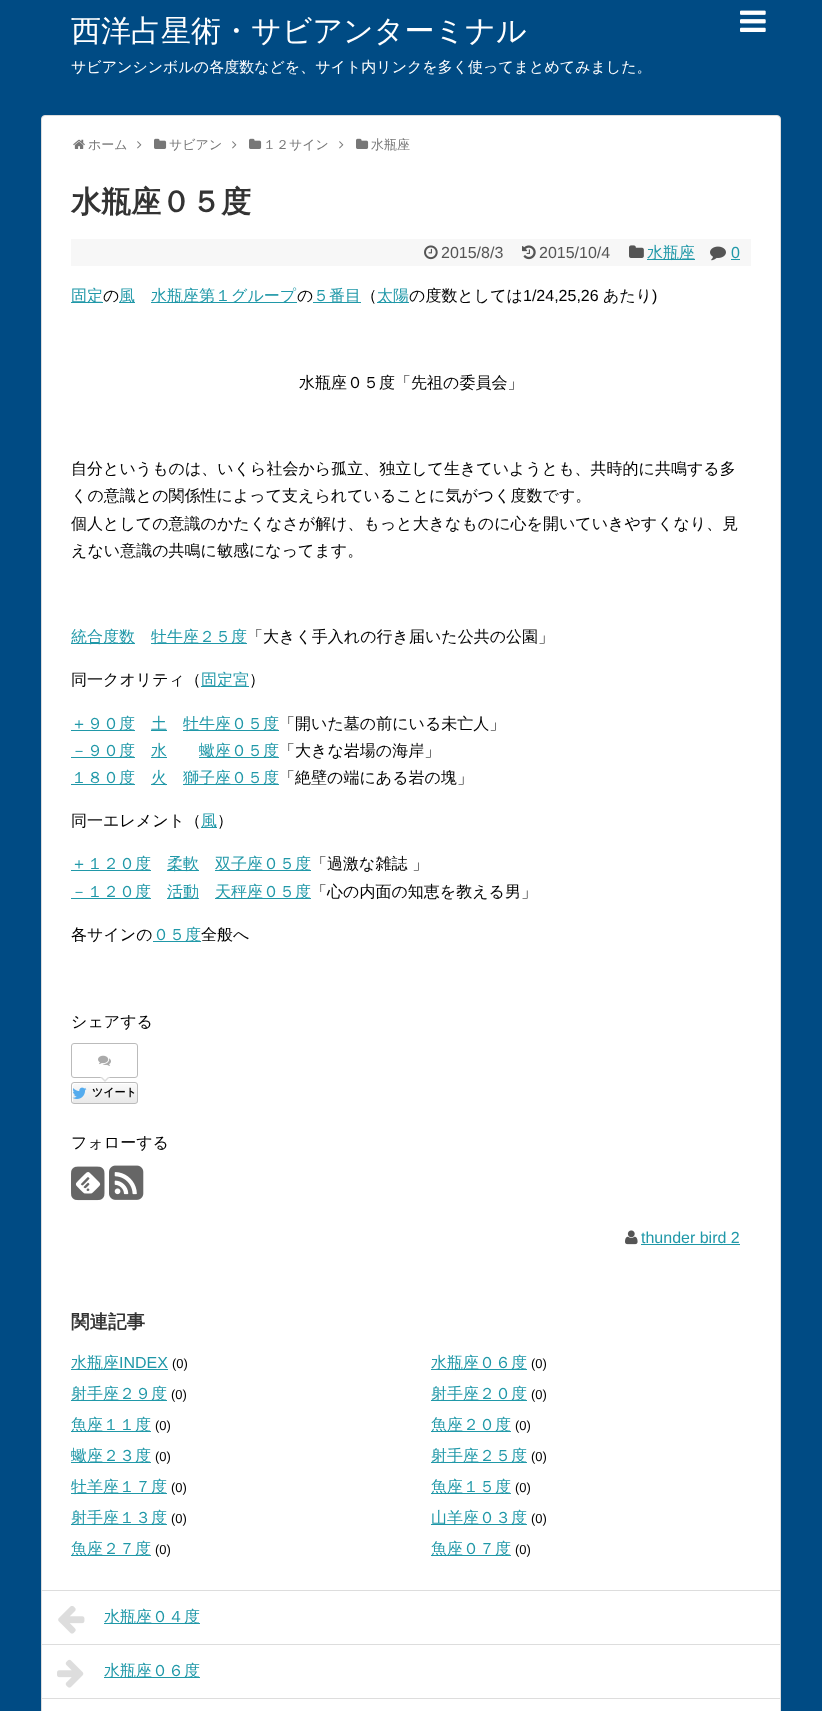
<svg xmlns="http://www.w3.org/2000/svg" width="822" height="1711">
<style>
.a{font:500 30px WenQuanYi Zen Hei;fill:#fff}
.b{font:500 15px WenQuanYi Zen Hei;fill:#fff}
.c{font:500 13px WenQuanYi Zen Hei;fill:#777}
.d{font:bold 30px WenQuanYi Zen Hei;fill:#333}
.e{font:16px Liberation Sans;fill:#555}
.f{font:500 16px WenQuanYi Zen Hei;fill:#2098a8}
.g{font:16px Liberation Sans;fill:#2098a8}
.h{font:500 16px WenQuanYi Zen Hei;fill:#000}
.i{font:16px Liberation Sans;fill:#000}
.j{font:bold 11px WenQuanYi Zen Hei;fill:#000}
.k{font:bold 18.5px WenQuanYi Zen Hei;fill:#333}
.l{font:13px Liberation Sans;fill:#000}
</style>
<defs>
<clipPath id="clip1"><rect x="71" y="1082" width="67" height="22" rx="3"/></clipPath>
<linearGradient id="g1" gradientUnits="userSpaceOnUse" x1="72" y1="1083" x2="72" y2="1103"><stop offset="0.05" stop-color="#f9f9f9"/><stop offset="1" stop-color="#e9e9e9"/></linearGradient>
</defs>
<rect width="100%" height="100%" fill="#004b84"/>
<image href="1.png" x="740" y="10" width="26" height="22"/>
<rect fill="#fff" stroke="#ddd" x="41.5" y="115.5" width="739" height="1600" rx="3.5"/>
<image href="2.png" x="73" y="139" width="12" height="10"/>
<image href="3.png" x="137" y="141" width="5" height="8"/>
<image href="4.png" x="154" y="138" width="13" height="11"/>
<image href="3.png" x="232" y="141" width="5" height="8"/>
<image href="4.png" x="249" y="138" width="13" height="11"/>
<image href="3.png" x="339" y="141" width="5" height="8"/>
<image href="4.png" x="356" y="138" width="13" height="11"/>
<path fill="#f7f7f7" d="M71 239h680v27H71z"/>
<image href="5.png" x="424" y="245" width="14" height="15"/>
<image href="6.png" x="522" y="245" width="14" height="15"/>
<image href="7.png" x="629" y="245" width="15" height="13"/>
<path fill="#2098a8" d="M647 259h48v1H647z"/>
<image href="8.png" x="710" y="246" width="16" height="15"/>
<path fill="#2098a8" d="M731 259h9v1H731z"/>
<path fill="#2098a8" d="M71 302h32v1H71z"/>
<path fill="#2098a8" d="M119 302h16v1H119z"/>
<path fill="#2098a8" d="M151 302h146v1H151z"/>
<path fill="#2098a8" d="M313 302h48v1H313z"/>
<path fill="#2098a8" d="M377 302h32v1H377z"/>
<path fill="#2098a8" d="M71 643h64v1H71z"/>
<path fill="#2098a8" d="M151 643h96v1H151z"/>
<path fill="#2098a8" d="M201 686h48v1H201z"/>
<path fill="#2098a8" d="M71 730h64v1H71z"/>
<path fill="#2098a8" d="M151 730h16v1H151z"/>
<path fill="#2098a8" d="M183 730h96v1H183z"/>
<path fill="#2098a8" d="M71 757h64v1H71z"/>
<path fill="#2098a8" d="M151 757h16v1H151z"/>
<path fill="#2098a8" d="M199 757h80v1H199z"/>
<path fill="#2098a8" d="M71 784h64v1H71z"/>
<path fill="#2098a8" d="M151 784h16v1H151z"/>
<path fill="#2098a8" d="M183 784h96v1H183z"/>
<path fill="#2098a8" d="M201 827h16v1H201z"/>
<path fill="#2098a8" d="M71 870h80v1H71z"/>
<path fill="#2098a8" d="M167 870h32v1H167z"/>
<path fill="#2098a8" d="M215 870h96v1H215z"/>
<path fill="#2098a8" d="M71 898h80v1H71z"/>
<path fill="#2098a8" d="M167 898h32v1H167z"/>
<path fill="#2098a8" d="M215 898h96v1H215z"/>
<path fill="#2098a8" d="M153 941h48v1H153z"/>
<rect fill="none" stroke="#bbb" x="71.5" y="1043.5" width="66" height="34" rx="2.5"/>
<image href="9.png" x="98" y="1055" width="13" height="11"/>
<path fill="#ddd" d="M100 1077h10l-5 5z"/>
<path fill="#fff" d="M102 1077h6l-3 3z"/>
<g clip-path="url(#clip1)">
<path fill="url(#g1)" d="M71 1083h67v20H71z"/>
</g>
<path fill="#fff" d="M75 1084h62l-2-1h-61c-1 0-2 1-2 2c0 3-1 17 1 18v-9c0-2-1-10 2-10z"/>
<rect fill="none" stroke="#bbb" x="71.5" y="1082.5" width="66" height="21" rx="2.5"/>
<image href="10.png" x="72" y="1087" width="15" height="12"/>
<image href="11.png" x="71" y="1166" width="34" height="35"/>
<image href="12.png" x="109" y="1165" width="35" height="35"/>
<image href="13.png" x="625" y="1230" width="13" height="15"/>
<path fill="#2098a8" d="M641 1244h99v1H641z"/>
<path fill="#2098a8" d="M71 1369h97v1H71z"/>
<path fill="#2098a8" d="M431 1369h96v1H431z"/>
<path fill="#2098a8" d="M71 1400h96v1H71z"/>
<path fill="#2098a8" d="M431 1400h96v1H431z"/>
<path fill="#2098a8" d="M71 1431h80v1H71z"/>
<path fill="#2098a8" d="M431 1431h80v1H431z"/>
<path fill="#2098a8" d="M71 1462h80v1H71z"/>
<path fill="#2098a8" d="M431 1462h96v1H431z"/>
<path fill="#2098a8" d="M71 1493h96v1H71z"/>
<path fill="#2098a8" d="M431 1493h80v1H431z"/>
<path fill="#2098a8" d="M71 1524h96v1H71z"/>
<path fill="#2098a8" d="M431 1524h96v1H431z"/>
<path fill="#2098a8" d="M71 1555h80v1H71z"/>
<path fill="#2098a8" d="M431 1555h80v1H431z"/>
<path fill="#ddd" d="M41 1590h740v1H41z"/>
<path fill="#ddd" d="M41 1644h740v1H41z"/>
<image href="14.png" x="58" y="1606" width="27" height="28"/>
<path fill="#2098a8" d="M104 1623h96v1H104z"/>
<path fill="#ddd" d="M41 1698h740v1H41z"/>
<image href="15.png" x="57" y="1659" width="27" height="29"/>
<path fill="#2098a8" d="M104 1677h96v1H104z"/>
<text class="a" x="71" y="41">西洋占星術・サビアンターミナル</text>
<text class="b" x="71" y="72">サビアンシンボルの各度数などを、サイト内リンクを多く使ってまとめてみました。</text>
<text class="c" x="88" y="149">ホーム</text>
<text class="c" x="169" y="149">サビアン</text>
<text class="c" x="263" y="149">１２サイン</text>
<text class="c" x="371" y="149">水瓶座</text>
<text class="d" x="71" y="212">水瓶座０５度</text>
<text class="e" x="441" y="258">2015/8/3</text>
<text class="e" x="539" y="258">2015/10/4</text>
<text class="f" x="647" y="258">水瓶座</text>
<text class="g" x="731" y="258">0</text>
<text class="f" x="71" y="301">固定</text>
<text class="h" x="103" y="301">の</text>
<text class="f" x="119" y="301">風</text>
<text class="f" x="151" y="301">水瓶座第１グループ</text>
<text class="h" x="297" y="301">の</text>
<text class="f" x="313" y="301">５番目</text>
<text class="h" x="361" y="301">（</text>
<text class="f" x="377" y="301">太陽</text>
<text class="h" x="409" y="301">の度数としては</text>
<text class="i" x="523" y="301">1/24,25,26</text>
<text class="h" x="603" y="301">あたり</text>
<text class="i" x="652" y="301">)</text>
<text class="h" x="299" y="388">水瓶座０５度「先祖の委員会」</text>
<text class="h" x="71" y="474">自分というものは、いくら社会から孤立、独立して生きていようとも、共時的に共鳴する多</text>
<text class="h" x="71" y="501">くの意識との関係性によって支えられていることに気がつく度数です。</text>
<text class="h" x="71" y="529">個人としての意識のかたくなさが解け、もっと大きなものに心を開いていきやすくなり、見</text>
<text class="h" x="71" y="556">えない意識の共鳴に敏感になってます。</text>
<text class="f" x="71" y="642">統合度数</text>
<text class="f" x="151" y="642">牡牛座２５度</text>
<text class="h" x="247" y="642">「大きく手入れの行き届いた公共の公園」</text>
<text class="h" x="71" y="685">同一クオリティ（</text>
<text class="f" x="201" y="685">固定宮</text>
<text class="h" x="249" y="685">）</text>
<text class="f" x="71" y="729">＋９０度</text>
<text class="f" x="151" y="729">土</text>
<text class="f" x="183" y="729">牡牛座０５度</text>
<text class="h" x="279" y="729">「開いた墓の前にいる未亡人」</text>
<text class="f" x="71" y="756">－９０度</text>
<text class="f" x="151" y="756">水</text>
<text class="f" x="199" y="756">蠍座０５度</text>
<text class="h" x="279" y="756">「大きな岩場の海岸」</text>
<text class="f" x="71" y="783">１８０度</text>
<text class="f" x="151" y="783">火</text>
<text class="f" x="183" y="783">獅子座０５度</text>
<text class="h" x="279" y="783">「絶壁の端にある岩の塊」</text>
<text class="h" x="71" y="826">同一エレメント（</text>
<text class="f" x="201" y="826">風</text>
<text class="h" x="217" y="826">）</text>
<text class="f" x="71" y="869">＋１２０度</text>
<text class="f" x="167" y="869">柔軟</text>
<text class="f" x="215" y="869">双子座０５度</text>
<text class="h" x="311" y="869">「過激な雑誌 」</text>
<text class="f" x="71" y="897">－１２０度</text>
<text class="f" x="167" y="897">活動</text>
<text class="f" x="215" y="897">天秤座０５度</text>
<text class="h" x="311" y="897">「心の内面の知恵を教える男」</text>
<text class="h" x="71" y="940">各サインの</text>
<text class="f" x="153" y="940">０５度</text>
<text class="h" x="201" y="940">全般へ</text>
<text class="h" x="71" y="1027">シェアする</text>
<text class="j" x="92" y="1096">ツイート</text>
<text class="h" x="71" y="1148">フォローする</text>
<text class="g" x="641" y="1243">thunder bird 2</text>
<text class="k" x="71" y="1328">関連記事</text>
<text class="f" x="71" y="1368">水瓶座</text>
<text class="g" x="119" y="1368">INDEX</text>
<text class="l" x="172" y="1368">(0)</text>
<text class="f" x="431" y="1368">水瓶座０６度</text>
<text class="l" x="531" y="1368">(0)</text>
<text class="f" x="71" y="1399">射手座２９度</text>
<text class="l" x="171" y="1399">(0)</text>
<text class="f" x="431" y="1399">射手座２０度</text>
<text class="l" x="531" y="1399">(0)</text>
<text class="f" x="71" y="1430">魚座１１度</text>
<text class="l" x="155" y="1430">(0)</text>
<text class="f" x="431" y="1430">魚座２０度</text>
<text class="l" x="515" y="1430">(0)</text>
<text class="f" x="71" y="1461">蠍座２３度</text>
<text class="l" x="155" y="1461">(0)</text>
<text class="f" x="431" y="1461">射手座２５度</text>
<text class="l" x="531" y="1461">(0)</text>
<text class="f" x="71" y="1492">牡羊座１７度</text>
<text class="l" x="171" y="1492">(0)</text>
<text class="f" x="431" y="1492">魚座１５度</text>
<text class="l" x="515" y="1492">(0)</text>
<text class="f" x="71" y="1523">射手座１３度</text>
<text class="l" x="171" y="1523">(0)</text>
<text class="f" x="431" y="1523">山羊座０３度</text>
<text class="l" x="531" y="1523">(0)</text>
<text class="f" x="71" y="1554">魚座２７度</text>
<text class="l" x="155" y="1554">(0)</text>
<text class="f" x="431" y="1554">魚座０７度</text>
<text class="l" x="515" y="1554">(0)</text>
<text class="f" x="104" y="1622">水瓶座０４度</text>
<text class="f" x="104" y="1676">水瓶座０６度</text>
</svg>
